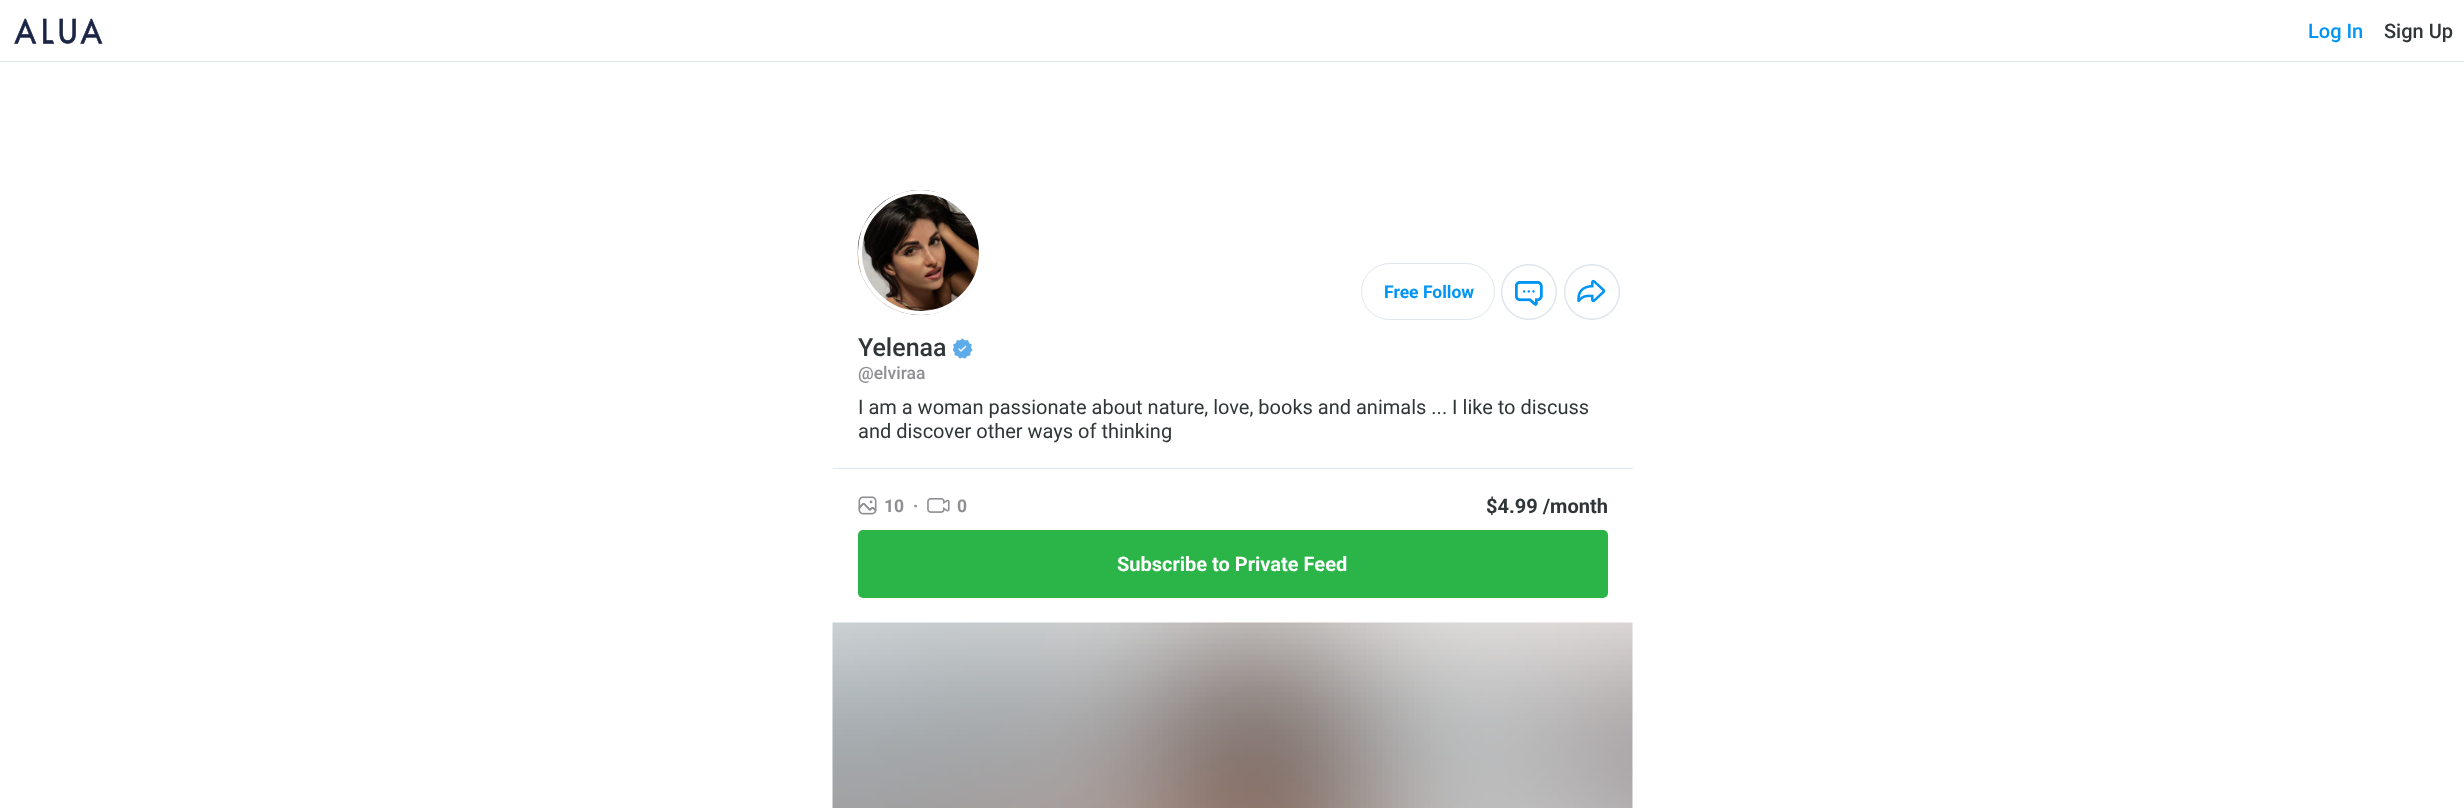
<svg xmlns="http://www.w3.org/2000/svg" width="2464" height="808">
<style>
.a{font:500 20px Roboto;fill:#0094f4}
.b{font:500 20px Roboto;fill:#303637}
.c{font:bold 17.5px Roboto;fill:#0094f4}
.d{font:500 25px Roboto;fill:#303637}
.e{font:500 17.5px Roboto;fill:#8e8e93}
.f{font:20px Roboto;fill:#303637}
.g{font:bold 17.5px Roboto;fill:#8e8e93}
.h{font:bold 20px Roboto;fill:#303637}
.i{font:bold 20px Roboto;fill:#fff}
</style>
<rect width="100%" height="100%" fill="#fff"/>
<path fill="#e0e6ed" d="M0 61h2464v1H0z"/>
<image href="1.png" x="14" y="18" width="89" height="26"/>
<image href="2.png" x="857" y="190" width="126" height="125"/>
<circle fill="none" stroke="#fff" stroke-width="4" cx="920.5" cy="252.5" r="60.5"/>
<rect fill="none" stroke="#e0e6ed" x="1361.5" y="263.5" width="133" height="56" rx="28"/>
<image href="3.png" x="1501" y="264" width="56" height="56"/>
<image href="4.png" x="1564" y="264" width="56" height="56"/>
<path fill="#e0e6ed" d="M833 468h800v1H833z"/>
<image href="5.png" x="953" y="338" width="20" height="21"/>
<image href="6.png" x="858" y="496" width="19" height="19"/>
<image href="7.png" x="927" y="498" width="23" height="15"/>
<rect fill="#2bb549" x="858" y="530" width="750" height="68" rx="5"/>
<image href="8.png" x="832" y="622" width="801" height="186"/>
<text class="a" x="2308" y="38">Log In</text>
<text class="b" x="2384" y="38">Sign Up</text>
<text class="c" x="1384" y="298">Free Follow</text>
<text class="d" x="858" y="356">Yelenaa</text>
<text class="e" x="858" y="379">@elviraa</text>
<text class="f" x="858" y="414">I am a woman passionate about nature, love, books and animals ... I like to discuss</text>
<text class="f" x="858" y="438">and discover other ways of thinking</text>
<text class="g" x="884" y="512">10</text>
<text class="g" x="913" y="512">·</text>
<text class="g" x="957" y="512">0</text>
<text class="h" x="1486" y="513">$4.99 /month</text>
<text class="i" x="1117" y="571">Subscribe to Private Feed</text>
</svg>
